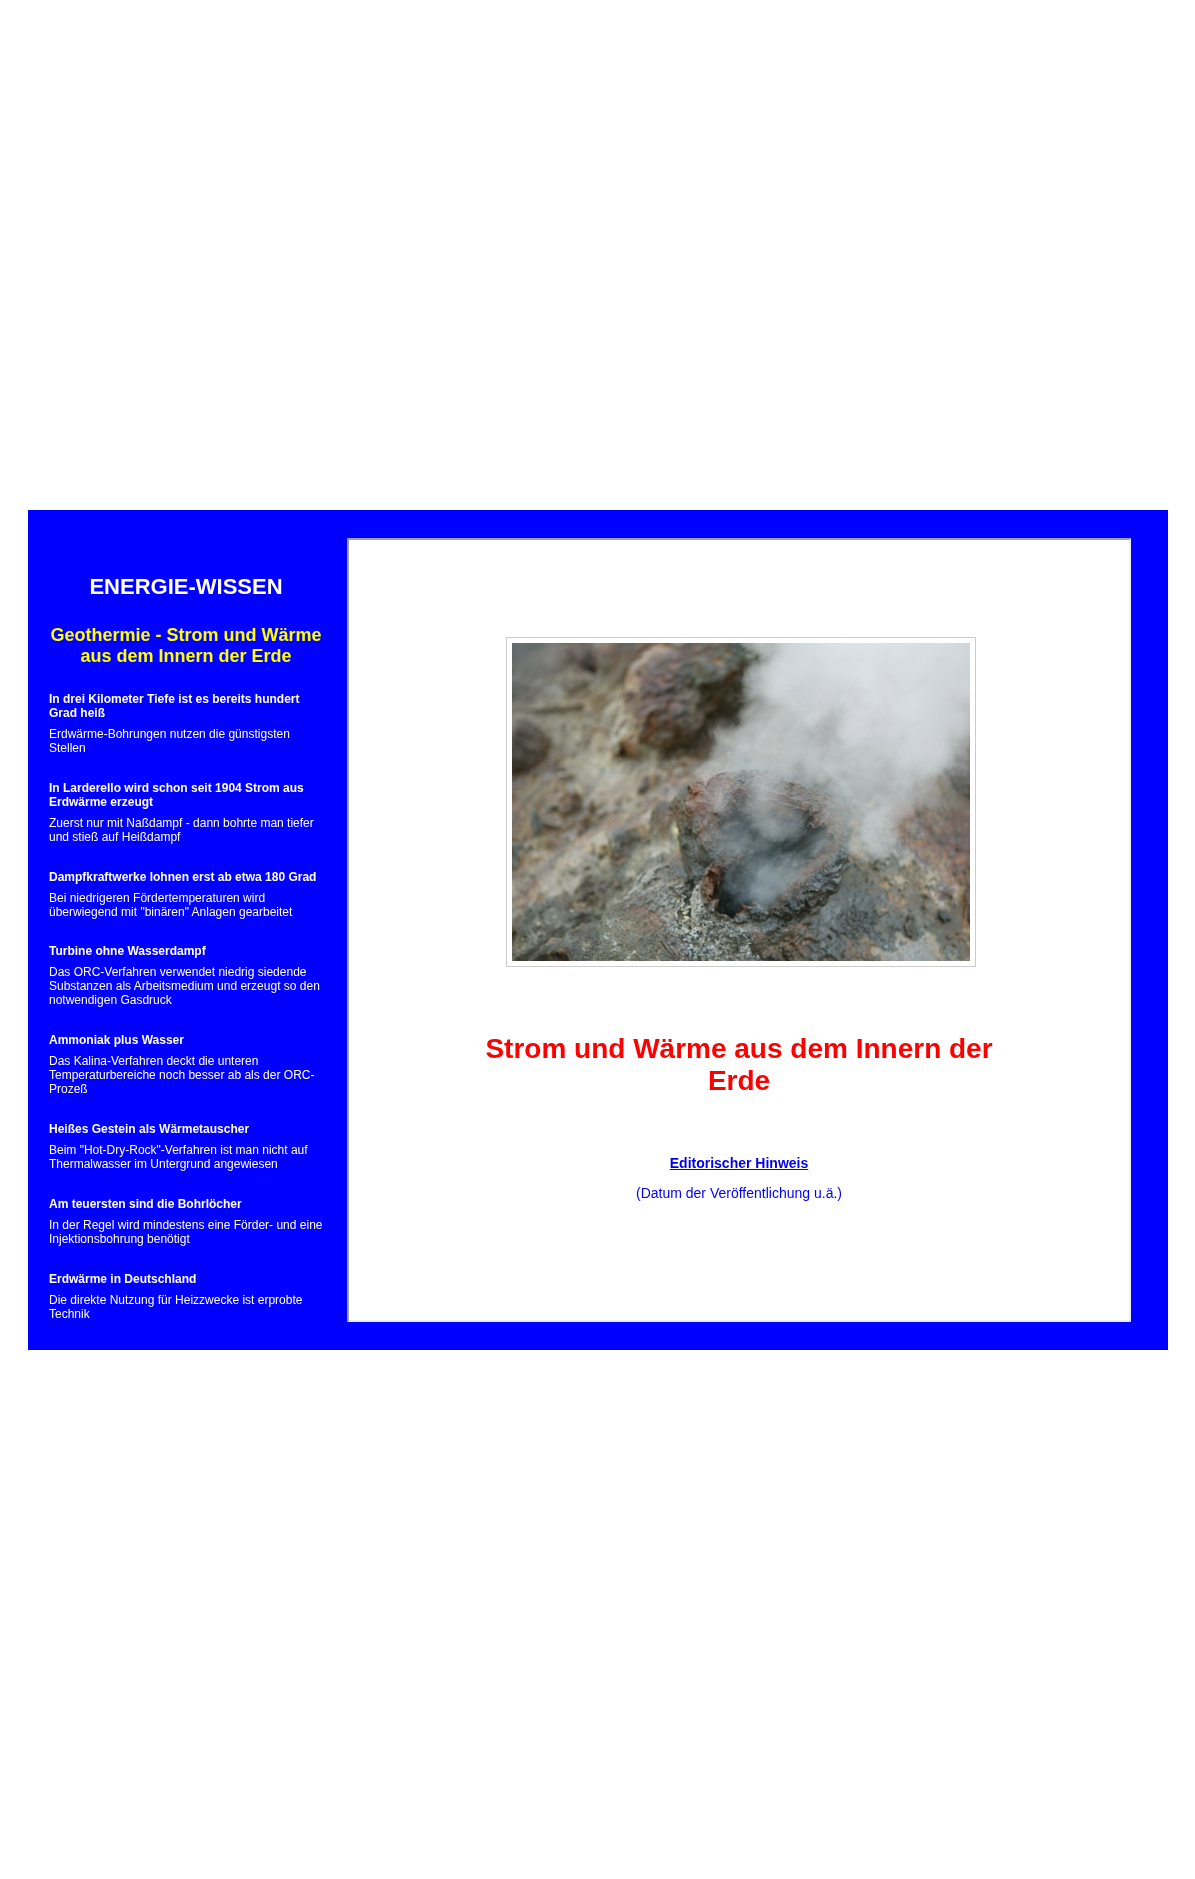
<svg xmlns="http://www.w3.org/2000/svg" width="1195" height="1879">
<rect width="100%" height="100%" fill="#fff"/>
<path fill="#00f" d="M28 510h1140v840H28z"/>
<image href="1.png" x="49" y="579" width="273" height="739"/>
<path fill="#9f9f9f" d="M347 538h784l-2 2h-780z"/>
<path fill="#eee" d="M1131 538v784l-2-2v-780z"/>
<path fill="#eee" d="M1131 1322h-784l2-2h780z"/>
<path fill="#9f9f9f" d="M347 1322v-784l2 2v780z"/>
<image href="2.png" x="349" y="540" width="780" height="780"/>
</svg>
